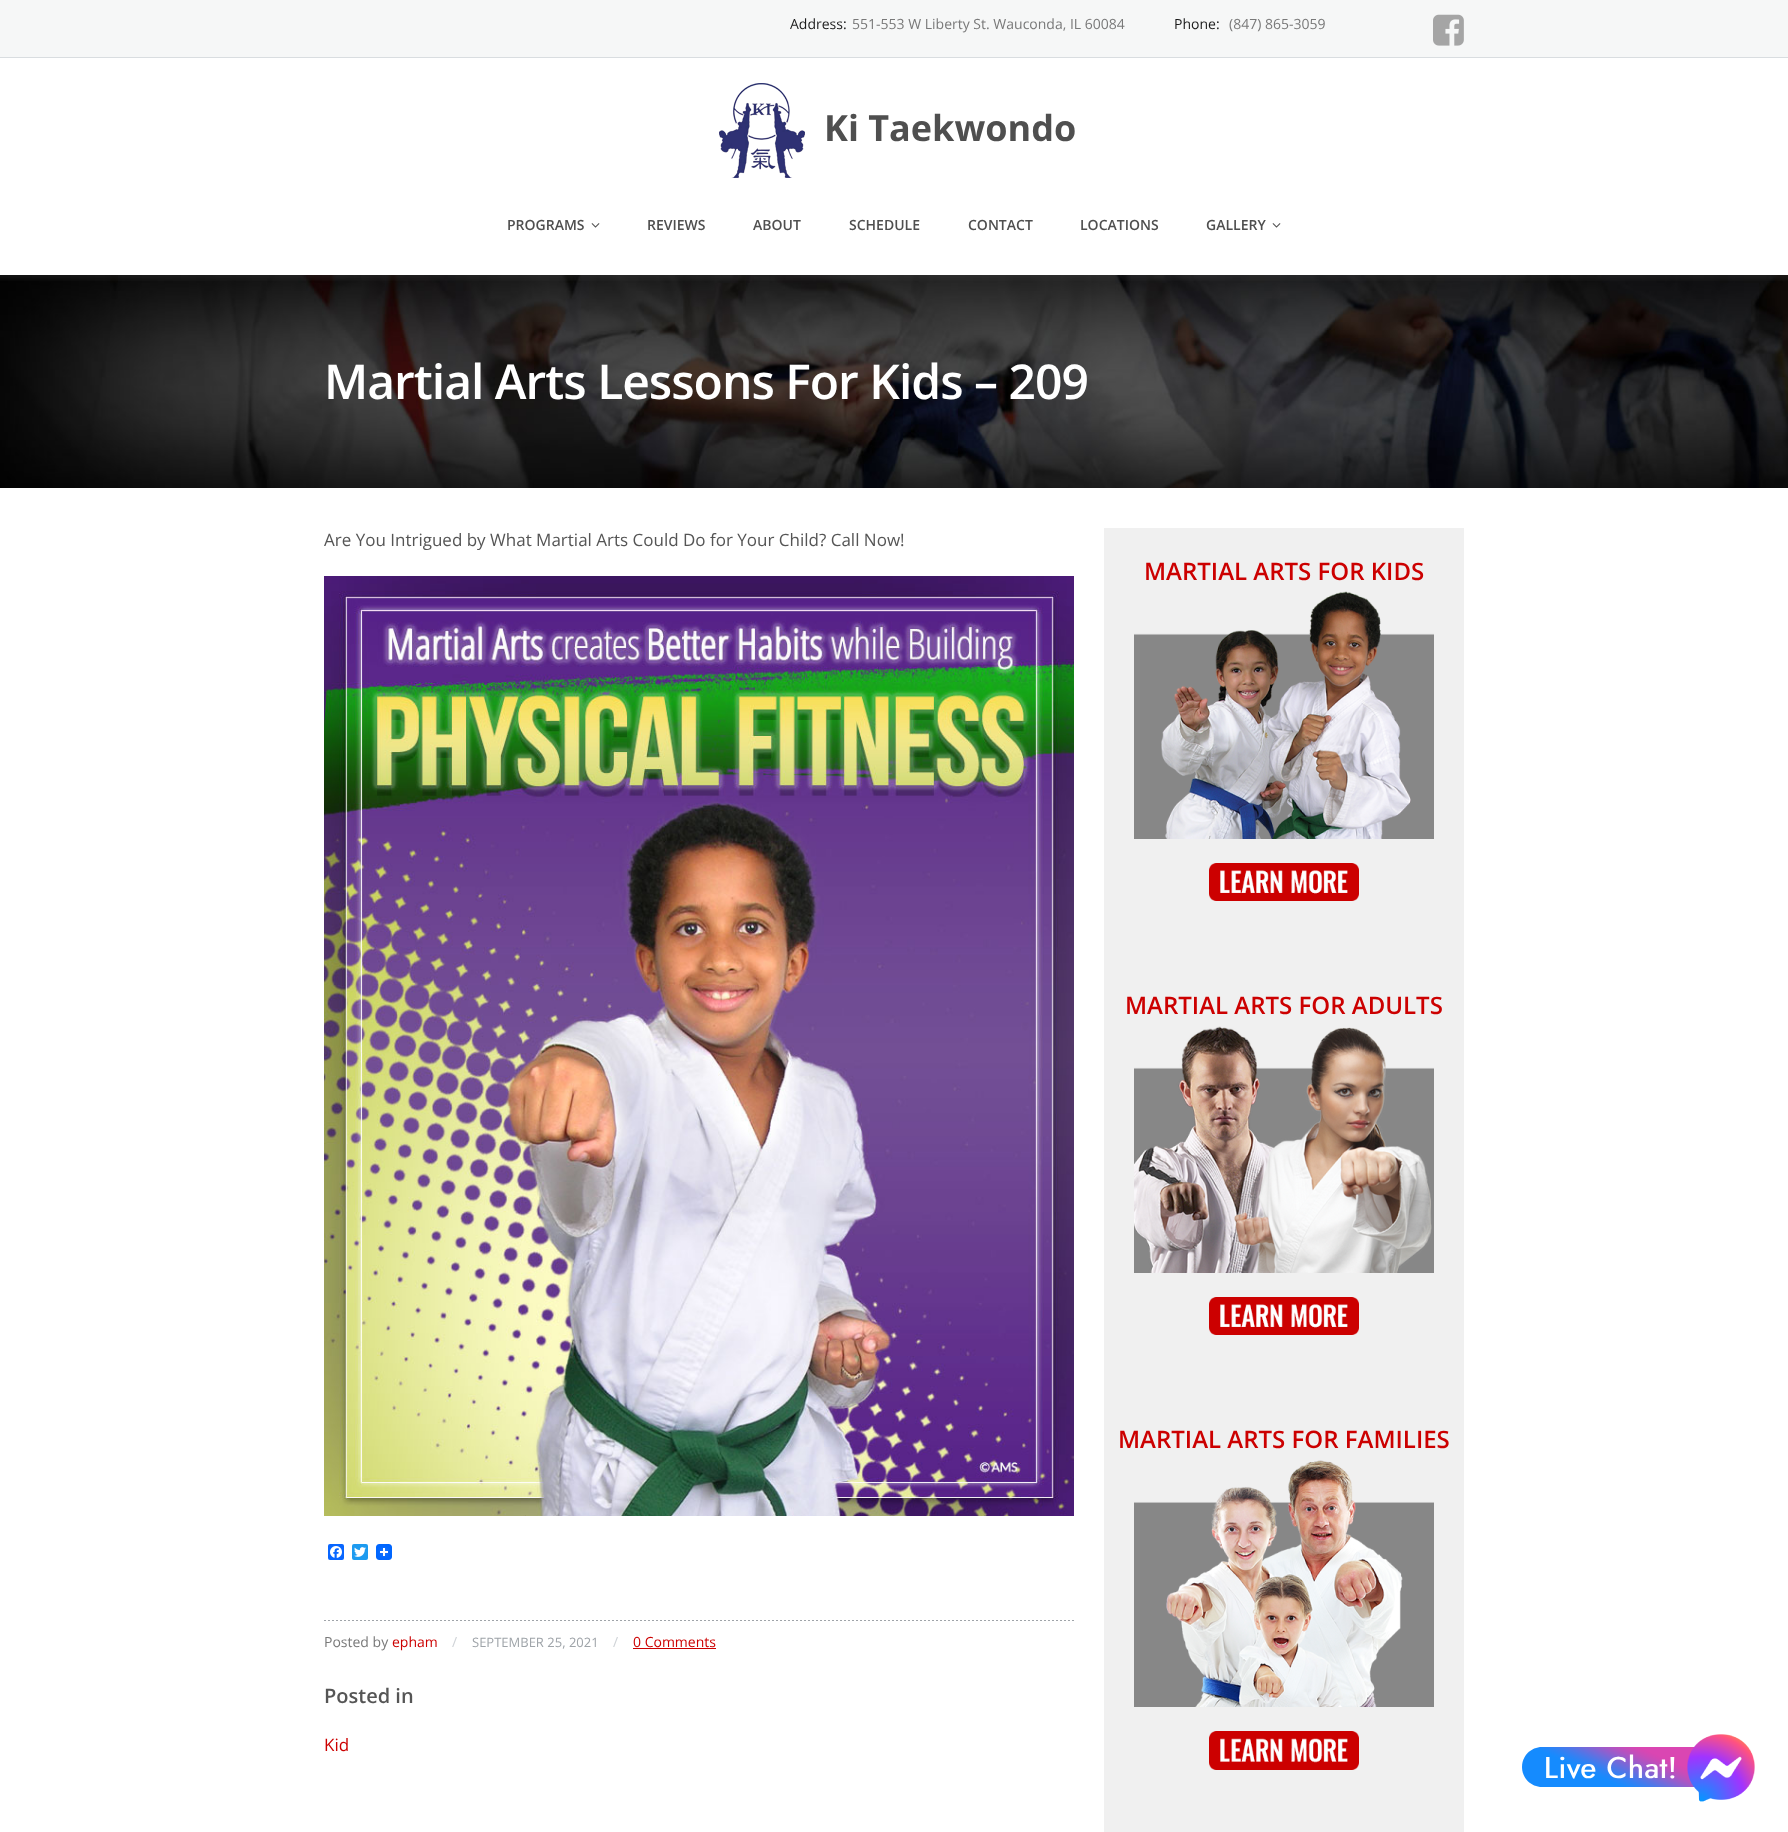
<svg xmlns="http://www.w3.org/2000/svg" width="1788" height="1832">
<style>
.a{font:14px Open Sans;fill:#1b1b1b}
.b{font:14px Open Sans;fill:#797979}
.c{font:bold 36px Open Sans;fill:#4f4f4f}
.d{font:600 14px Open Sans;fill:#4f4f4f}
.e{font:600 48px Open Sans;letter-spacing:-1px;fill:#fff}
.f{font:17px Open Sans;fill:#555}
.g{font:14px Open Sans;fill:#c00}
.h{font:14px Open Sans;fill:#cfd3d7}
.i{font:13px Open Sans;fill:#9fa4a9}
.j{font:600 20px Open Sans;fill:#555}
.k{font:17px Open Sans;fill:#c00}
.l{font:600 24px Open Sans;fill:#c00}
</style>
<rect width="100%" height="100%" fill="#fff"/>
<path fill="#f6f7f7" d="M0 0h1788v57H0z"/>
<path fill="#d9dde0" d="M0 57h1788v1H0z"/>
<image href="1.png" x="1433" y="14" width="31" height="32"/>
<image href="2.png" x="719" y="83" width="86" height="95"/>
<image href="3.png" x="591" y="223" width="9" height="5"/>
<image href="3.png" x="1272" y="223" width="9" height="5"/>
<image href="5.png" x="0" y="275" width="1788" height="213"/>
<image href="4.png" x="0" y="275" width="1788" height="6"/>
<image href="6.png" x="324" y="576" width="750" height="940"/>
<rect fill="#0866ff" x="328" y="1544" width="16" height="16" rx="2"/>
<image href="7.png" x="330" y="1546" width="12" height="12"/>
<rect fill="#1d9bf0" x="352" y="1544" width="16" height="16" rx="2"/>
<image href="8.png" x="354" y="1547" width="12" height="10"/>
<image href="9.png" x="376" y="1544" width="16" height="16"/>
<image href="10.png" x="324" y="1620" width="750" height="1"/>
<path fill="#c00" d="M633 1648h83v1H633z"/>
<path fill="#f0f0f0" d="M1104 528h360v1304H1104z"/>
<image href="11.png" x="1134" y="591" width="300" height="248"/>
<image href="12.png" x="1209" y="863" width="150" height="38"/>
<image href="13.png" x="1134" y="1026" width="300" height="247"/>
<image href="14.png" x="1209" y="1297" width="150" height="38"/>
<image href="15.png" x="1134" y="1460" width="300" height="247"/>
<image href="16.png" x="1209" y="1731" width="150" height="39"/>
<image href="17.png" x="1522" y="1734" width="233" height="68"/>
<text class="a" x="790" y="29">Address:</text>
<text class="b" x="852" y="29">551-553 W Liberty St. Wauconda, IL 60084</text>
<text class="a" x="1174" y="29">Phone:</text>
<text class="b" x="1229" y="29">(847) 865-3059</text>
<text class="c" x="824" y="141">Ki Taekwondo</text>
<text class="d" x="507" y="230">PROGRAMS</text>
<text class="d" x="647" y="230">REVIEWS</text>
<text class="d" x="753" y="230">ABOUT</text>
<text class="d" x="849" y="230">SCHEDULE</text>
<text class="d" x="968" y="230">CONTACT</text>
<text class="d" x="1080" y="230">LOCATIONS</text>
<text class="d" x="1206" y="230">GALLERY</text>
<text class="e" x="324" y="399">Martial Arts Lessons For Kids – 209</text>
<text class="f" x="324" y="546">Are You Intrigued by What Martial Arts Could Do for Your Child? Call Now!</text>
<text class="b" x="324" y="1647">Posted by</text>
<text class="g" x="392" y="1647">epham</text>
<text class="h" x="452" y="1647">/</text>
<text class="i" x="472" y="1647">SEPTEMBER 25, 2021</text>
<text class="h" x="613" y="1647">/</text>
<text class="g" x="633" y="1647">0 Comments</text>
<text class="j" x="324" y="1703">Posted in</text>
<text class="k" x="324" y="1751">Kid</text>
<text class="l" x="1144" y="580">MARTIAL ARTS FOR KIDS</text>
<text class="l" x="1125" y="1014">MARTIAL ARTS FOR ADULTS</text>
<text class="l" x="1118" y="1448">MARTIAL ARTS FOR FAMILIES</text>
</svg>
